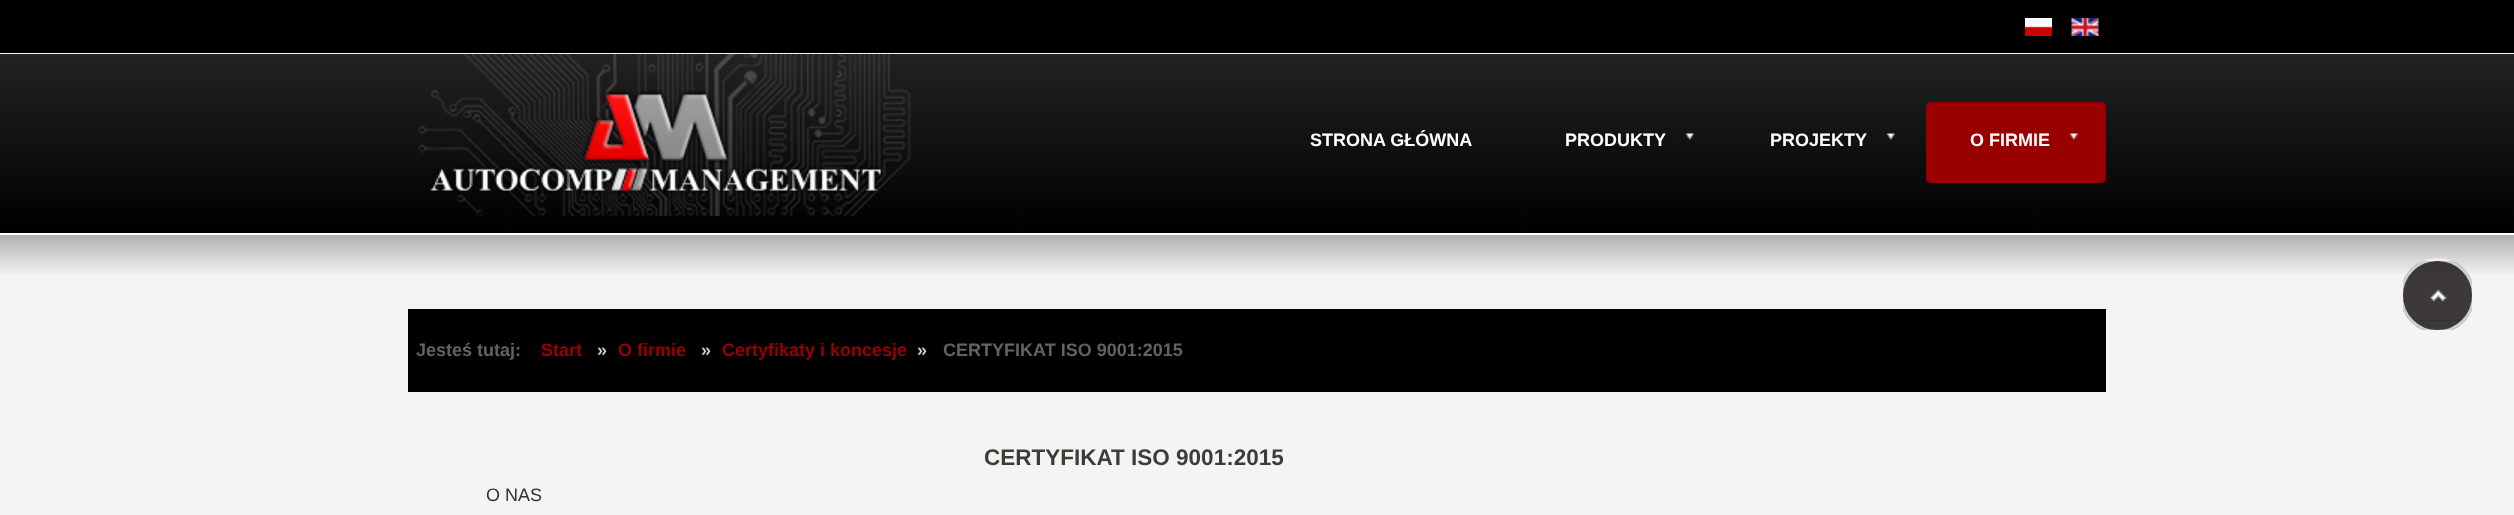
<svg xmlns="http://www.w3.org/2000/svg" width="2514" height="515">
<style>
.a{font:bold 18px Liberation Sans;fill:#fff}
.b{font:bold 18px Liberation Sans;fill:#626262}
.c{font:bold 18px Liberation Sans;fill:#900}
.d{font:bold 18px Liberation Sans;fill:#ccc}
.e{font:bold 22.5px Liberation Sans;fill:#3f3c38}
.f{font:18px Liberation Sans;fill:#333}
</style>
<defs>
<linearGradient id="g1" gradientUnits="userSpaceOnUse" x1="1257" y1="54" x2="1257" y2="233"><stop offset="0" stop-color="#222"/><stop offset="1" stop-color="#000"/></linearGradient>
</defs>
<rect width="100%" height="100%" fill="#f4f4f4"/>
<image href="1.png" x="0" y="235" width="2514" height="39"/>
<path fill="#000" d="M0 0h2514v53H0z"/>
<image href="2.png" x="2025" y="18" width="27" height="18"/>
<image href="3.png" x="2071" y="18" width="28" height="18"/>
<path fill="url(#g1)" d="M0 54h2514v179H0z"/>
<path fill="#fff" d="M0 233h2514v2H0z"/>
<image href="4.png" x="418" y="54" width="493" height="162"/>
<image href="5.png" x="430" y="90" width="451" height="104"/>
<image href="6.png" x="1685" y="133" width="9" height="7"/>
<image href="7.png" x="1886" y="133" width="9" height="7"/>
<rect fill="#900" x="1926" y="102" width="180" height="81" rx="5"/>
<image href="8.png" x="2069" y="133" width="9" height="8"/>
<path fill="#000" d="M408 309h1698v83H408z"/>
<image href="9.png" x="2403" y="261" width="69" height="69"/>
<circle fill="none" stroke="#f4f4f4cc" stroke-width="3" cx="2437.5" cy="295.5" r="36"/>
<text class="a" x="1310" y="146">STRONA GŁÓWNA</text>
<text class="a" x="1565" y="146">PRODUKTY</text>
<text class="a" x="1770" y="146">PROJEKTY</text>
<text class="a" x="1970" y="146">O FIRMIE</text>
<text class="b" x="416" y="356">Jesteś tutaj:</text>
<text class="c" x="541" y="356">Start</text>
<text class="d" x="597" y="356">»</text>
<text class="c" x="618" y="356">O firmie</text>
<text class="d" x="701" y="356">»</text>
<text class="c" x="722" y="356">Certyfikaty i koncesje</text>
<text class="d" x="917" y="356">»</text>
<text class="b" x="943" y="356">CERTYFIKAT ISO 9001:2015</text>
<text class="e" x="984" y="465">CERTYFIKAT ISO 9001:2015</text>
<text class="f" x="486" y="501">O NAS</text>
</svg>
